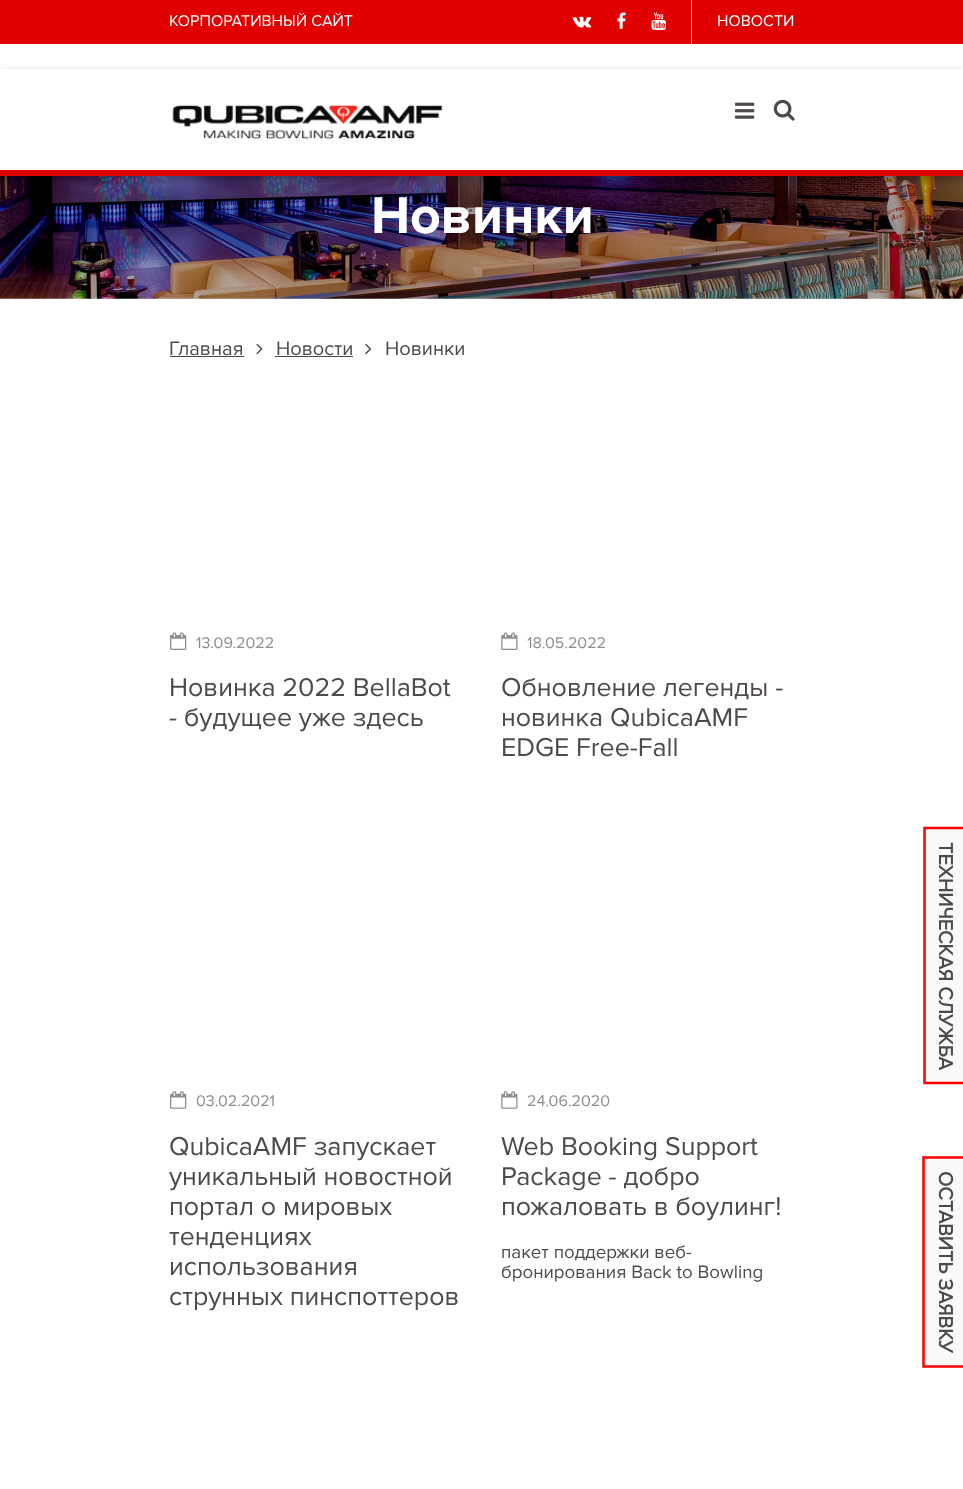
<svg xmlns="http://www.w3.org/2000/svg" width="963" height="1489">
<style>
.a{font:15px Proxima Nova;fill:#fff}
.b{font:bold 50px Proxima Nova;fill:#fff}
.c{font:18.75px Proxima Nova;fill:#4e4a49}
.d{font:15px Proxima Nova;fill:#8e8e8e}
.e{font:25px Proxima Nova;fill:#4e4a49}
.f{font:17.5px Proxima Nova;fill:#4e4a49}
.g{font:bold 18.75px 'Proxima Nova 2';fill:#4e4a49}
</style>
<rect width="100%" height="100%" fill="#fff"/>
<path fill="#e00000" d="M0 0h963v44H0z"/>
<image href="1.png" x="572" y="16" width="20" height="12"/>
<image href="2.png" x="617" y="12" width="9" height="17"/>
<image href="3.png" x="651" y="12" width="15" height="18"/>
<path fill="#fff" d="M691 0h1v44H691z"/>
<image href="7.png" x="0" y="176" width="963" height="123"/>
<path fill="#0000004d" filter="blur(5px)" d="M0 73h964v107H0z"/>
<path fill="#fff" d="M0 69h963v101H0z"/>
<path fill="#e00000" d="M0 170h963v6H0z"/>
<image href="4.png" x="172" y="104" width="271" height="36"/>
<image href="5.png" x="735" y="102" width="20" height="17"/>
<image href="6.png" x="773" y="99" width="22" height="22"/>
<path fill="#4e4a49" d="M170 356h74v1H170z"/>
<image href="8.png" x="256" y="343" width="7" height="12"/>
<path fill="#4e4a49" d="M275 356h78v1H275z"/>
<image href="9.png" x="365" y="343" width="7" height="12"/>
<image href="10.png" x="170" y="632" width="17" height="18"/>
<image href="11.png" x="501" y="632" width="17" height="18"/>
<image href="12.png" x="170" y="1091" width="17" height="18"/>
<image href="13.png" x="501" y="1091" width="17" height="18"/>
<path fill="#f9f9f9" d="M923 827h40v257H923z"/>
<path fill="none" stroke="#f00" stroke-width="2.5" d="M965.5 828v255h-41v-255z"/>
<path fill="#f9f9f9" d="M922 1156h41v212H922z"/>
<path fill="none" stroke="#f00" stroke-width="2.5" d="M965 1157.5v209h-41.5v-209z"/>
<text class="a" x="169" y="26">КОРПОРАТИВНЫЙ САЙТ</text>
<text class="a" x="717" y="26">НОВОСТИ</text>
<text class="b" x="371" y="233">Новинки</text>
<text class="c" x="169" y="355">Главная</text>
<text class="c" x="276" y="355">Новости</text>
<text class="c" x="385" y="355">Новинки</text>
<text class="d" x="196" y="648">13.09.2022</text>
<text class="e" x="169" y="696">Новинка 2022 BellaBot</text>
<text class="e" x="169" y="726">- будущее уже здесь</text>
<text class="d" x="527" y="648">18.05.2022</text>
<text class="e" x="501" y="696">Обновление легенды -</text>
<text class="e" x="501" y="726">новинка QubicaAMF</text>
<text class="e" x="501" y="756">EDGE Free-Fall</text>
<text class="d" x="196" y="1106">03.02.2021</text>
<text class="e" x="169" y="1155">QubicaAMF запускает</text>
<text class="e" x="169" y="1185">уникальный новостной</text>
<text class="e" x="169" y="1215">портал о мировых</text>
<text class="e" x="169" y="1245">тенденциях</text>
<text class="e" x="169" y="1275">использования</text>
<text class="e" x="169" y="1305">струнных пинспоттеров</text>
<text class="d" x="527" y="1106">24.06.2020</text>
<text class="e" x="501" y="1155">Web Booking Support</text>
<text class="e" x="501" y="1185">Package - добро</text>
<text class="e" x="501" y="1215">пожаловать в боулинг!</text>
<text class="f" x="501" y="1258">пакет поддержки веб-</text>
<text class="f" x="501" y="1278">бронирования Back to Bowling</text>
<text class="g" x="939" y="842" transform="rotate(90 939 842)">ТЕХНИЧЕСКАЯ СЛУЖБА</text>
<text class="g" x="939" y="1171" transform="rotate(90 939 1171)">ОСТАВИТЬ ЗАЯВКУ</text>
</svg>
